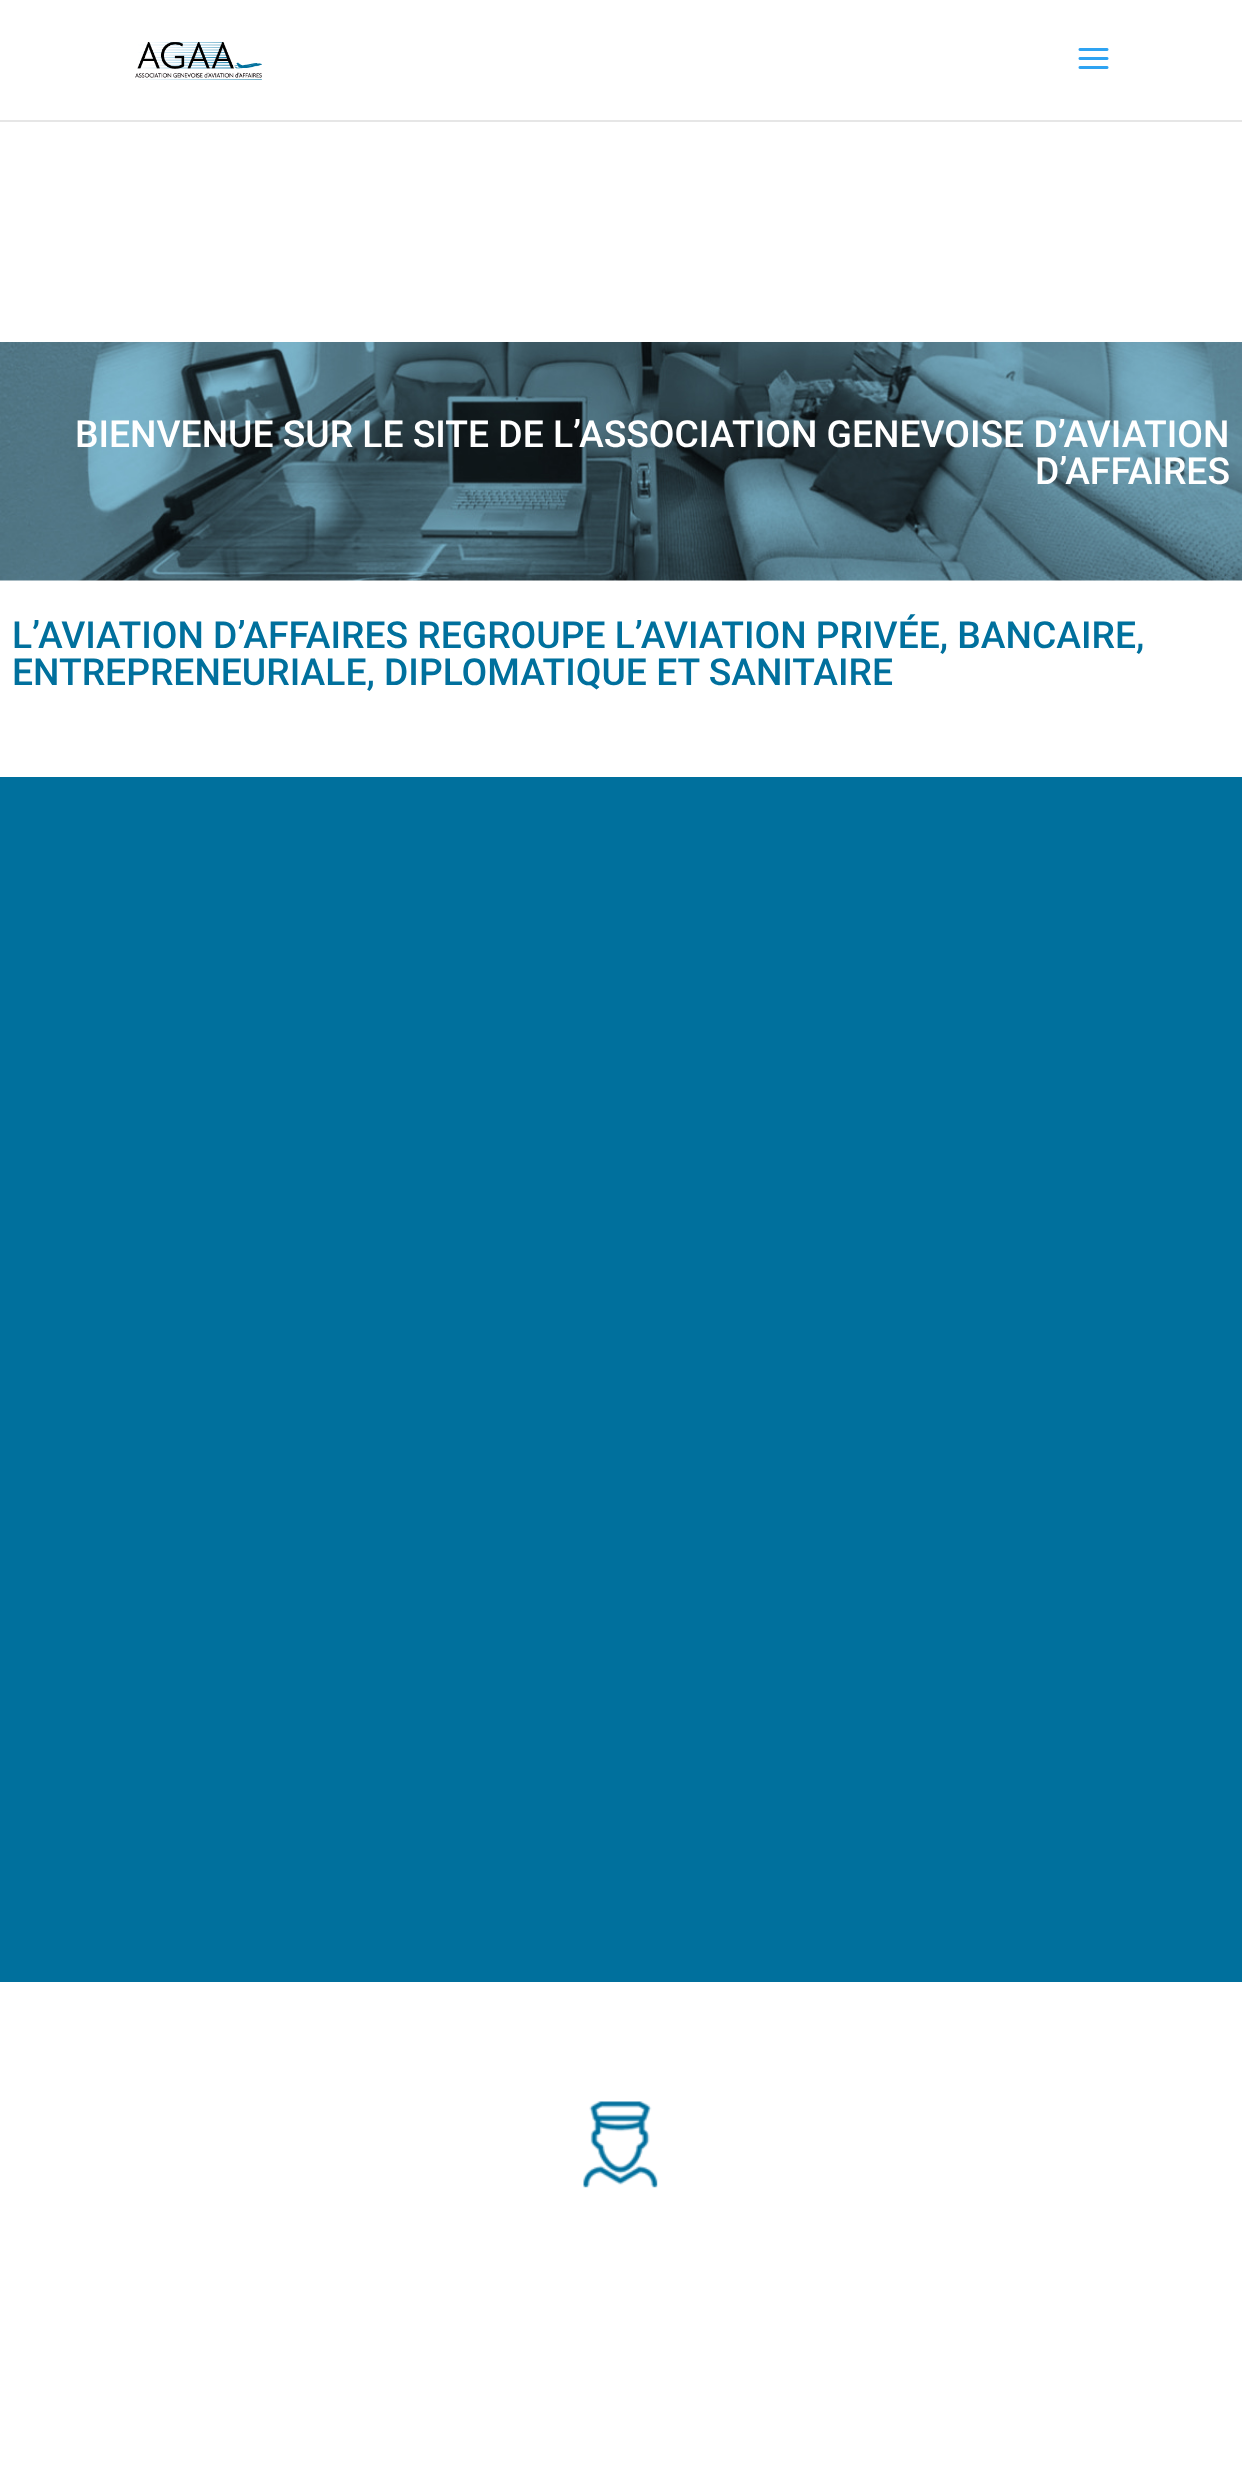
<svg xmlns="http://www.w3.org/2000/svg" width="1242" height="2484">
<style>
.a{font:500 37.25px Roboto;fill:#fff}
.b{font:500 37.25px Roboto;fill:#00709d}
</style>
<rect width="100%" height="100%" fill="#fff"/>
<path fill="#e6e6e6" d="M0 120h1242v2H0z"/>
<image href="1.png" x="135" y="42" width="127" height="38"/>
<image href="2.png" x="1078" y="48" width="31" height="21"/>
<image href="3.png" x="0" y="342" width="1242" height="239"/>
<path fill="#00709d" d="M0 777h1242v1205H0z"/>
<image href="4.png" x="583" y="2101" width="75" height="87"/>
<text class="a" x="75" y="447">BIENVENUE SUR LE SITE DE L’ASSOCIATION GENEVOISE D’AVIATION</text>
<text class="a" x="1035" y="484">D’AFFAIRES</text>
<text class="b" x="12" y="648">L’AVIATION D’AFFAIRES REGROUPE L’AVIATION PRIVÉE, BANCAIRE,</text>
<text class="b" x="12" y="685">ENTREPRENEURIALE, DIPLOMATIQUE ET SANITAIRE</text>
</svg>
